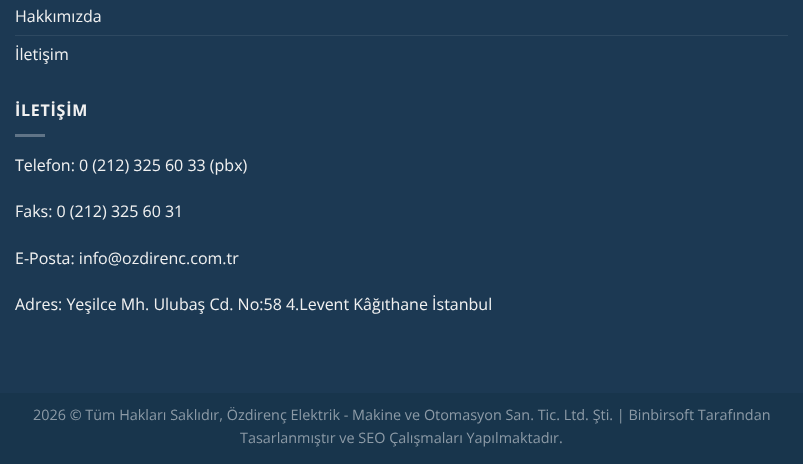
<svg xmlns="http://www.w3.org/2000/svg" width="803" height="464">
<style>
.a{font:16px Open Sans;fill:#f1f1f1}
.b{font:bold 16px Open Sans;letter-spacing:0.75px;fill:#f1f1f1}
.c{font:14.4px Open Sans;fill:#8c9aa6}
</style>
<rect width="100%" height="100%" fill="#1c3953"/>
<path fill="#2e4961" d="M15 35h773v1H15z"/>
<path fill="#607487" d="M15 134h30v3H15z"/>
<path fill="#18354c" d="M0 393h803v71H0z"/>
<text class="a" x="15" y="22">Hakkımızda</text>
<text class="a" x="15" y="60">İletişim</text>
<text class="b" x="15" y="116">İLETİŞİM</text>
<text class="a" x="15" y="171">Telefon: 0 (212) 325 60 33 (pbx)</text>
<text class="a" x="15" y="217">Faks: 0 (212) 325 60 31</text>
<text class="a" x="15" y="264">E-Posta: info@ozdirenc.com.tr</text>
<text class="a" x="15" y="310">Adres: Yeşilce Mh. Ulubaş Cd. No:58 4.Levent Kâğıthane İstanbul</text>
<text class="c" x="33" y="420">2026 © Tüm Hakları Saklıdır, Özdirenç Elektrik - Makine ve Otomasyon San. Tic. Ltd. Şti. | Binbirsoft Tarafından</text>
<text class="c" x="240" y="443">Tasarlanmıştır ve SEO Çalışmaları Yapılmaktadır.</text>
</svg>
